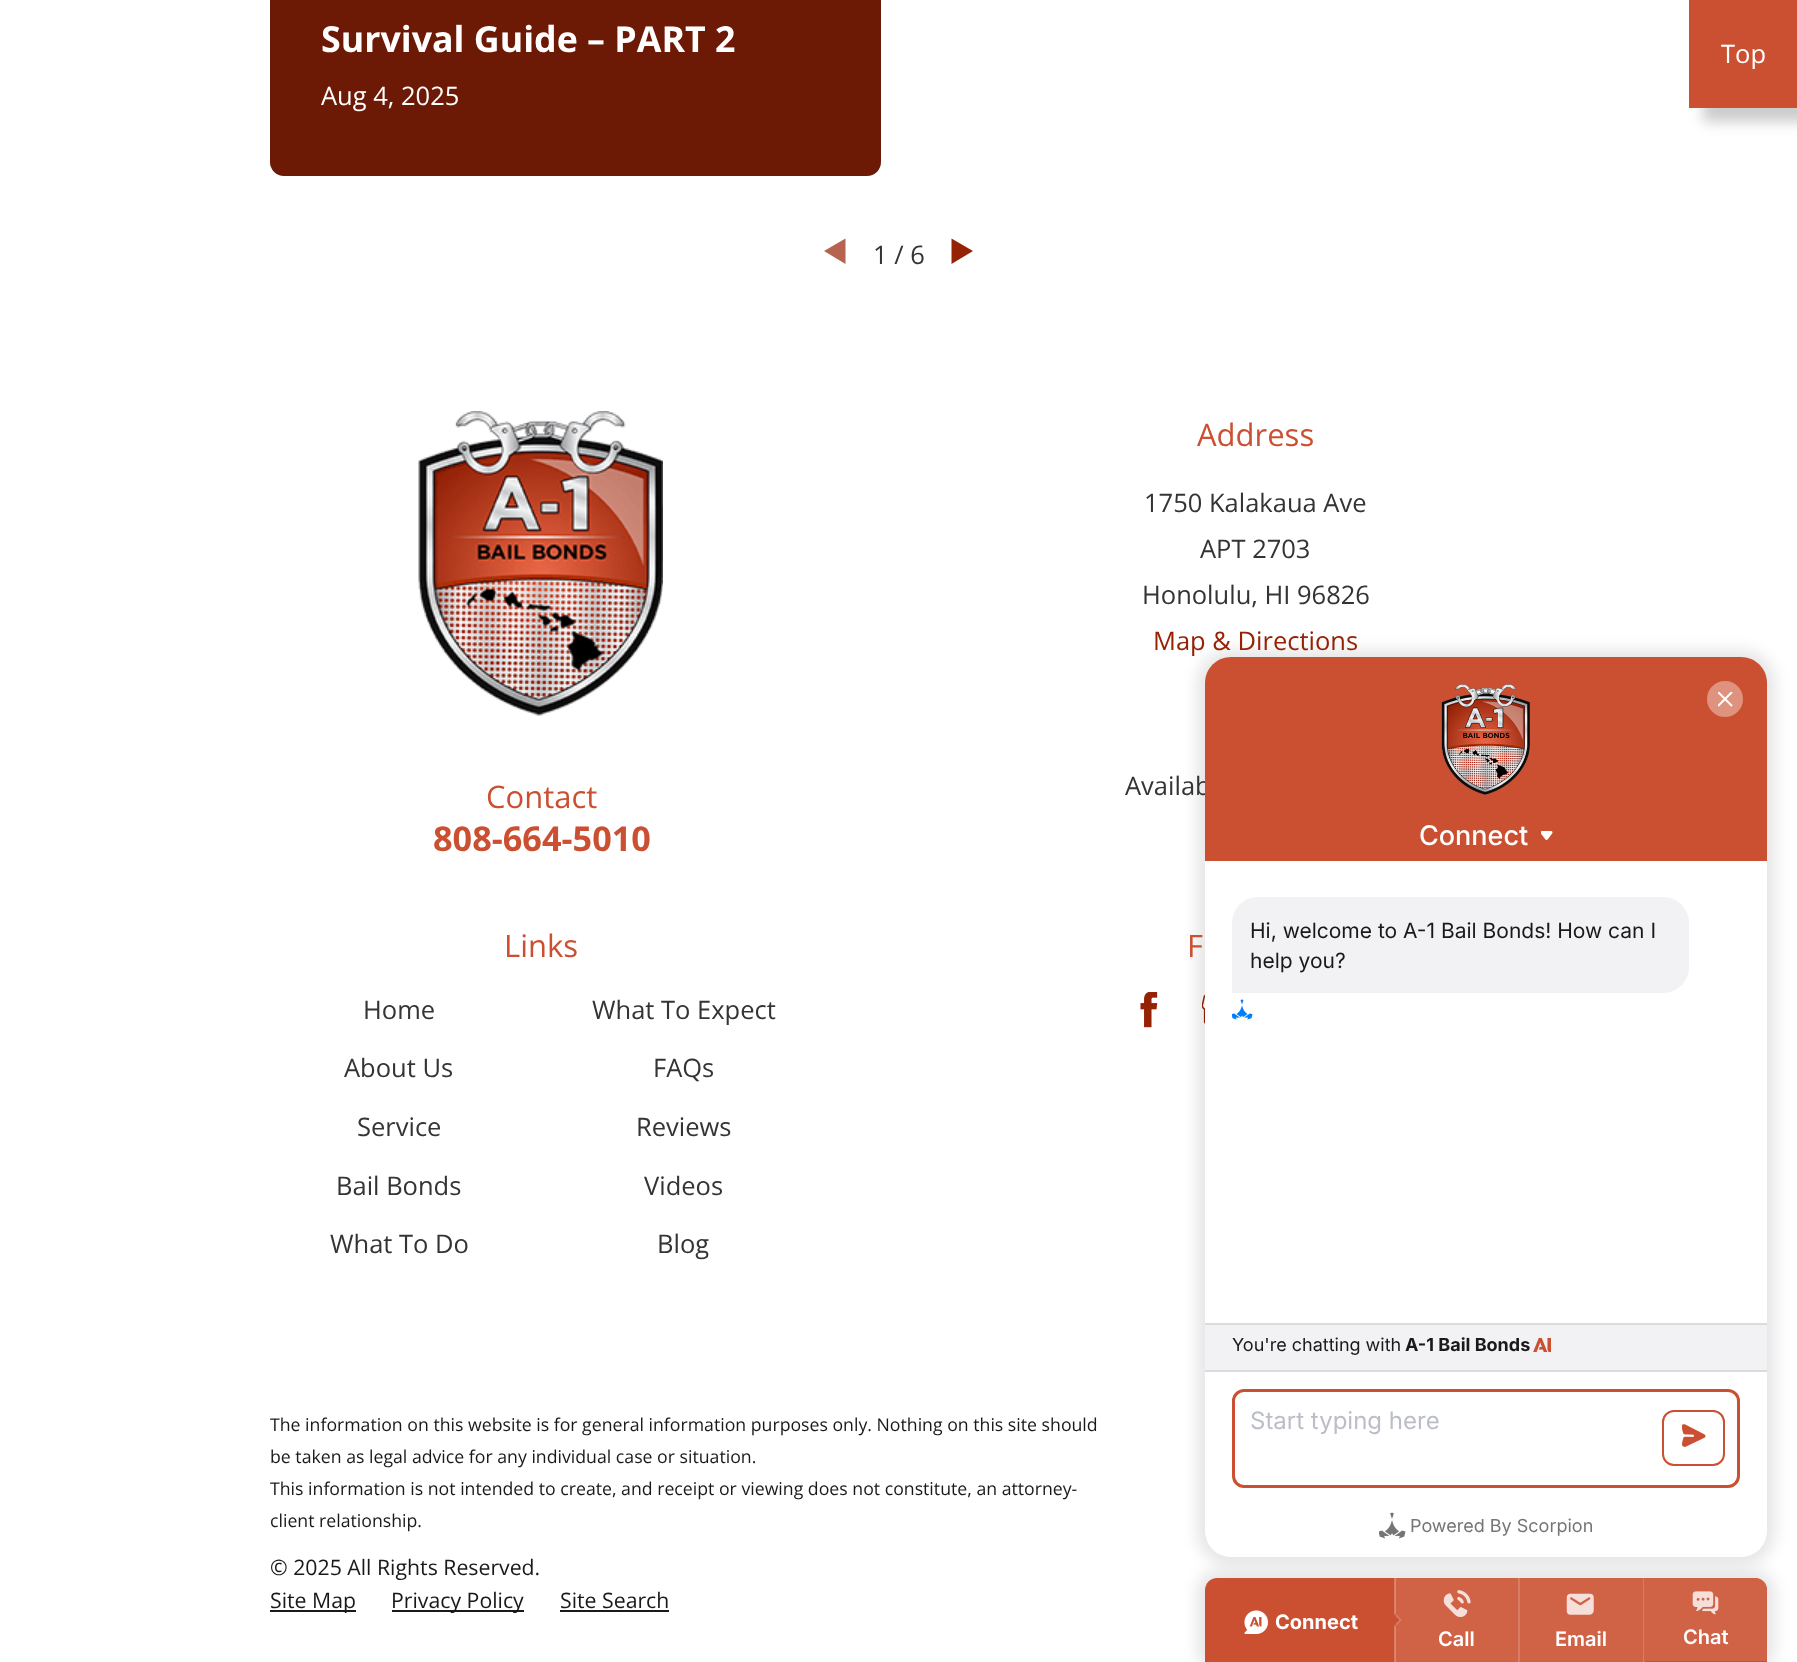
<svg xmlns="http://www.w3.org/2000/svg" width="1797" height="1662">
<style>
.a{font:bold 35.75px Open Sans;fill:#fff}
.b{font:25.5px Open Sans;fill:#fff}
.c{font:25.5px Open Sans;fill:#343434}
.d{font:31px Open Sans;fill:#cb5031}
.e{font:25.5px Open Sans;fill:#962206}
.f{font:bold 34.25px Open Sans;fill:#cb5031}
.g{font:17.7px Open Sans;fill:#191919}
.h{font:21.25px Open Sans;fill:#191919}
.i{font:500 27px Inter;fill:#fff}
.j{font:21px Inter;fill:#191919}
.k{font:18px Inter;fill:#191919}
.l{font:bold 18px Inter;fill:#191919}
.m{font:24px Inter;fill:#bcbec7}
.n{font:18px Inter;fill:#757575}
.o{font:bold 20px Inter;fill:#fff}
.p{font:600 20px Inter;fill:#fff}
</style>
<rect width="100%" height="100%" fill="#fff"/>
<rect fill="#6c1905" x="270" y="-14" width="611" height="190" rx="14"/>
<path fill="#b66451" d="M824 251l21.5-12.5v25.5z"/>
<path fill="#962206" d="M973 251l-21.5 13v-25.5z"/>
<path fill="#00000033" filter="blur(6.5px)" d="M1703 14h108v108H1703z"/>
<path fill="#cb5031" d="M1689 0h108v108H1689z"/>
<image href="1.png" x="418" y="411" width="245" height="305"/>
<image href="2.png" x="1140" y="992" width="18" height="36"/>
<image href="3.png" x="1202" y="994" width="3" height="30"/>
<path fill="#191919" d="M270 1610h86v2H270z"/>
<path fill="#191919" d="M392 1610h132v2H392z"/>
<path fill="#191919" d="M560 1610h109v2H560z"/>
<rect fill="#0000001a" filter="blur(7.5px)" x="1197" y="650" width="578" height="915" rx="33"/>
<text class="a" x="321" y="52">Survival Guide – PART 2</text>
<text class="b" x="321" y="105">Aug 4, 2025</text>
<text class="c" x="873" y="264">1 / 6</text>
<text class="b" x="1721" y="63">Top</text>
<text class="d" x="1197" y="446">Address</text>
<text class="c" x="1144" y="512">1750 Kalakaua Ave</text>
<text class="c" x="1200" y="558">APT 2703</text>
<text class="c" x="1142" y="604">Honolulu, HI 96826</text>
<text class="e" x="1153" y="650">Map &amp; Directions</text>
<text class="c" x="1125" y="795">Availab</text>
<text class="d" x="486" y="808">Contact</text>
<text class="f" x="433" y="851">808-664-5010</text>
<text class="d" x="504" y="957">Links</text>
<text class="c" x="363" y="1019">Home</text>
<text class="c" x="592" y="1019">What To Expect</text>
<text class="c" x="344" y="1077">About Us</text>
<text class="c" x="653" y="1077">FAQs</text>
<text class="c" x="357" y="1136">Service</text>
<text class="c" x="636" y="1136">Reviews</text>
<text class="c" x="336" y="1195">Bail Bonds</text>
<text class="c" x="644" y="1195">Videos</text>
<text class="c" x="330" y="1253">What To Do</text>
<text class="c" x="657" y="1253">Blog</text>
<text class="d" x="1187" y="957">F</text>
<text class="g" x="270" y="1431">The information on this website is for general information purposes only. Nothing on this site should</text>
<text class="g" x="270" y="1463">be taken as legal advice for any individual case or situation.</text>
<text class="g" x="270" y="1495">This information is not intended to create, and receipt or viewing does not constitute, an attorney-</text>
<text class="g" x="270" y="1527">client relationship.</text>
<text class="h" x="270" y="1575">© 2025 All Rights Reserved.</text>
<text class="h" x="270" y="1608">Site Map</text>
<text class="h" x="391" y="1608">Privacy Policy</text>
<text class="h" x="560" y="1608">Site Search</text>
<rect fill="#fff" x="1205" y="657" width="562" height="900" rx="26"/>
<path fill="#cb5031" d="M1231 657h510c14.5 0 26 11.5 26 26v127h-562v-127c0-14.5 11.5-26 26-26z"/>
<image href="4.png" x="1441" y="684" width="89" height="111"/>
<circle fill="#df927e" cx="1725" cy="699" r="18"/>
<image href="5.png" x="1718" y="692" width="15" height="15"/>
<path fill="#cb5031" d="M1205 810h562v51H1205z"/>
<text class="i" x="1419" y="845">Connect</text>
<image href="6.png" x="1541" y="831" width="12" height="9"/>
<path fill="#f2f2f5" d="M1258 897h405c14.5 0 26 11.5 26 26v44c0 14.5-11.5 26-26 26h-431v-70c0-14.5 11.5-26 26-26z"/>
<text class="j" x="1250" y="938">Hi, welcome to A-1 Bail Bonds! How can I</text>
<text class="j" x="1250" y="968">help you?</text>
<image href="7.png" x="1232" y="999" width="21" height="21"/>
<path fill="#f2f2f5" d="M1205 1325h562v45H1205z"/>
<path fill="#dadbdd" d="M1205 1323h562v2H1205z"/>
<path fill="#dadbdd" d="M1205 1370h562v2H1205z"/>
<text class="k" x="1232" y="1351">You're chatting with</text>
<text class="l" x="1405" y="1351">A-1 Bail Bonds</text>
<image href="8.png" x="1533" y="1337" width="18" height="15"/>
<rect fill="none" stroke="#cb5031" stroke-width="3" x="1233.5" y="1390.5" width="505" height="96" rx="10.5"/>
<text class="m" x="1250" y="1429">Start typing here</text>
<rect fill="none" stroke="#cb5031" stroke-width="2" x="1663" y="1411" width="61" height="54" rx="11"/>
<image href="9.png" x="1682" y="1424" width="24" height="23"/>
<image href="10.png" x="1379" y="1512" width="27" height="27"/>
<text class="n" x="1410" y="1532">Powered By Scorpion</text>
<rect fill="#0000001a" filter="blur(7.5px)" x="1197" y="1571" width="578" height="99" rx="20"/>
<path fill="#cb5031" d="M1217 1578h538c6.5 0 12 5.5 12 12v72h-562v-72c0-6.5 5.5-12 12-12z"/>
<image href="11.png" x="1244" y="1610" width="24" height="24"/>
<text class="o" x="1275" y="1629">Connect</text>
<path fill="#d87c65" d="M1518 1578h2v84H1518z"/>
<path fill="#d06246" d="M1395 1578h123v84H1395z"/>
<path fill="#ffffff40" d="M1394 1578h2v84H1394z"/>
<path fill="#cb5031" d="M1395.5 1613.5l6.5 6.5l-6.5 6.5l-6.5-6.5z"/>
<path fill="#d87c65" d="M1402 1620l-6.5 6.5v-2.5l4-4z"/>
<path fill="#ffffff40" d="M1395.5 1613.5l6.5 6.5h-2.5l-4-4z"/>
<image href="12.png" x="1443" y="1590" width="28" height="27"/>
<text class="p" x="1438" y="1646">Call</text>
<path fill="#d87c65" d="M1643 1578h2v84H1643z"/>
<path fill="#d06246" d="M1520 1578h123v84H1520z"/>
<image href="13.png" x="1566" y="1593" width="28" height="22"/>
<text class="p" x="1555" y="1646">Email</text>
<path fill="#d06246" d="M1644 1578h111c6.5 0 12 5.5 12 12v71h-123z"/>
<image href="14.png" x="1692" y="1591" width="27" height="24"/>
<text class="p" x="1683" y="1644">Chat</text>
</svg>
